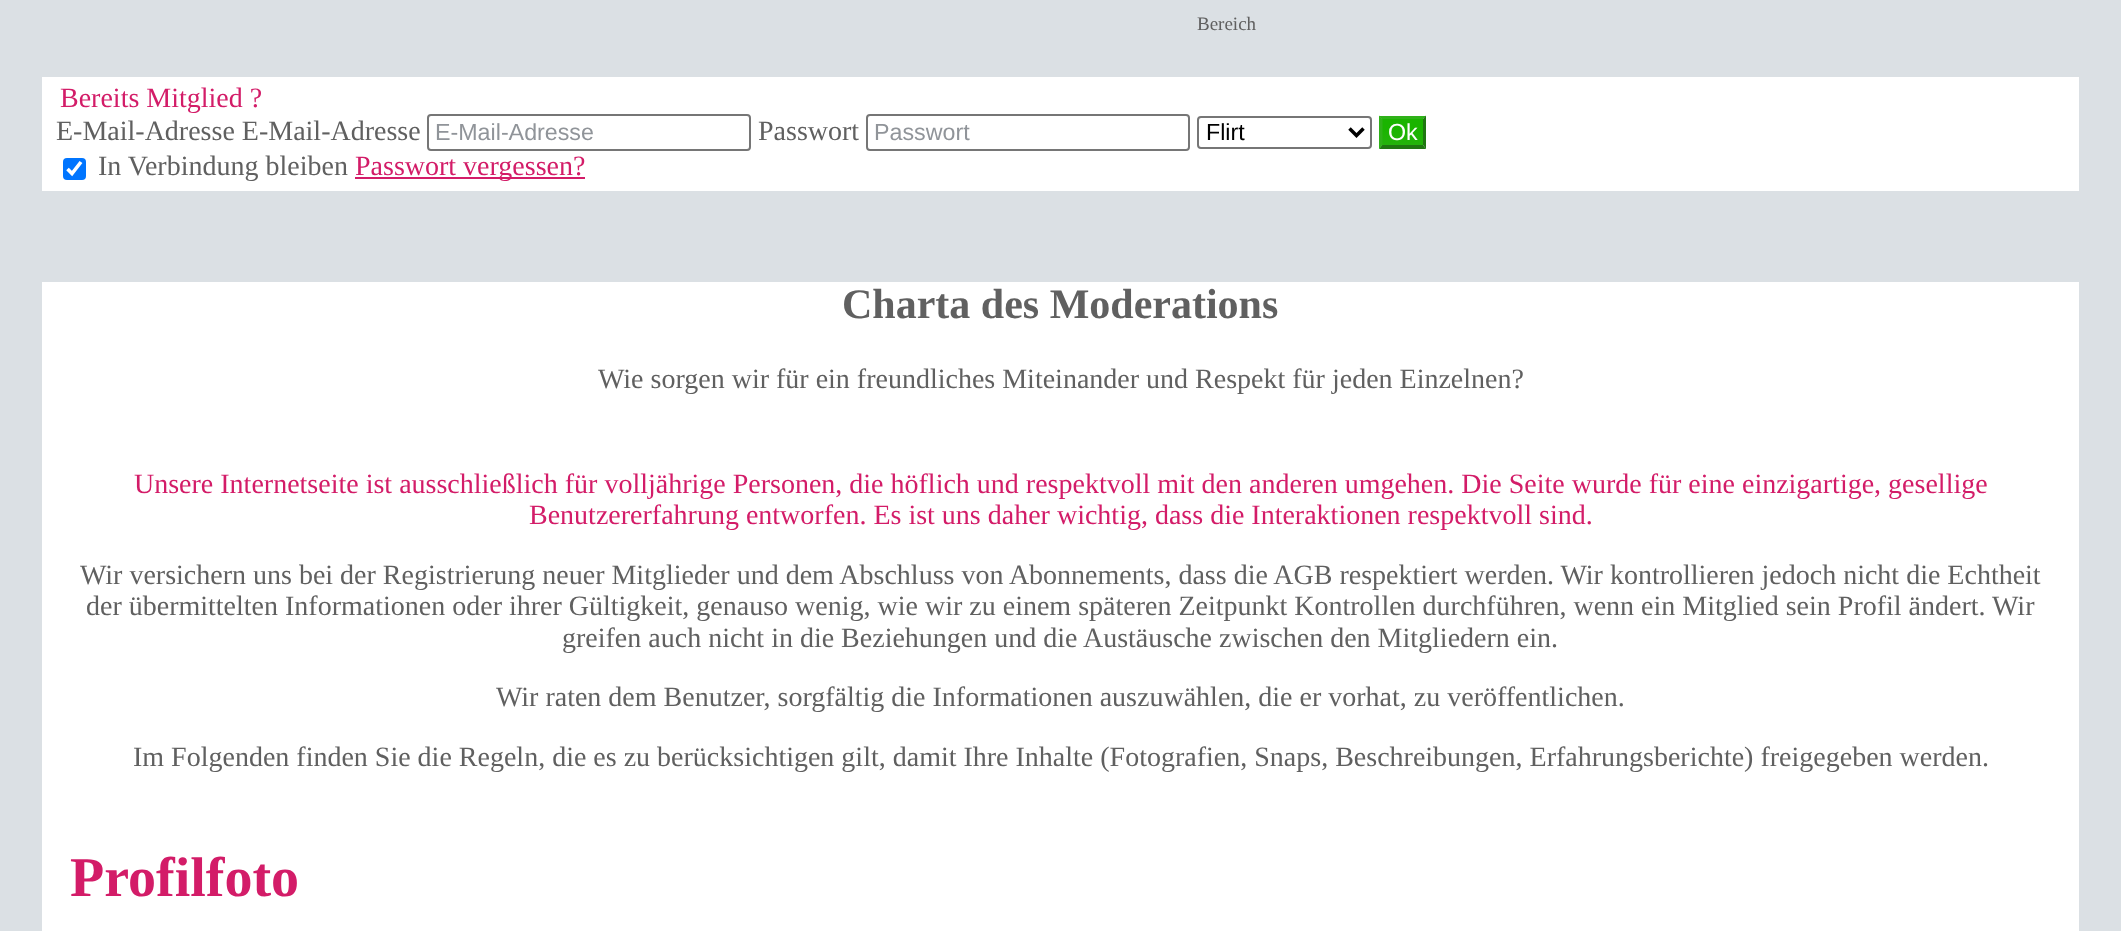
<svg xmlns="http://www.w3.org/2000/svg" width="2121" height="931">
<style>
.a{font:28px Liberation Serif;fill:#606060}
.b{font:23.25px Liberation Sans;fill:#909499}
.c{font:19px Liberation Serif;fill:#606060}
.d{font:23.25px Liberation Sans;fill:#000}
.e{font:23.25px Liberation Sans;fill:#fff}
.f{font:28px Liberation Serif;fill:#d31c68}
.g{font:bold 42px Liberation Serif;fill:#606060}
.h{font:bold 56px Liberation Serif;fill:#d31c68}
</style>
<defs>
<linearGradient id="g1" gradientUnits="userSpaceOnUse" x1="1403" y1="119" x2="1403" y2="145"><stop offset="0.4" stop-color="#1ab400"/><stop offset="1" stop-color="#24b30c"/></linearGradient>
</defs>
<rect width="100%" height="100%" fill="#dbe0e4"/>
<path fill="#fff" d="M42 77h2037v114H42z"/>
<rect fill="none" stroke="#767676" stroke-width="2" x="428" y="115" width="322" height="35" rx="3"/>
<rect fill="none" stroke="#767676" stroke-width="2" x="867" y="115" width="322" height="35" rx="3"/>
<rect fill="none" stroke="#767676" stroke-width="2" x="1198" y="117" width="173" height="31" rx="3"/>
<path fill="none" stroke="#000" stroke-width="3.5" d="M1349.5 128.5l7 7l7-7"/>
<path fill="url(#g1)" d="M1382 119h41v26H1382z"/>
<path fill="#2fb219" d="M1379 116h47l-3 3h-41z"/>
<path fill="#1f7711" d="M1426 115.5v33.5l-3-4v-26z"/>
<path fill="#1f7711" d="M1426 149h-47l3-4h41z"/>
<path fill="#2fb219" d="M1379 149v-33.5l3.5 3.5v26z"/>
<rect fill="#0075ff" x="63" y="158" width="23" height="22" rx="4"/>
<path fill="none" stroke="#fff" stroke-width="3.6" d="M67.5 169l4.5 4.5l9-11.5"/>
<path fill="#d31c68" d="M355 177h230v2H355z"/>
<path fill="#fff" d="M42 282h2037v649H42z"/>
<text class="a" x="56" y="140">E-Mail-Adresse E-Mail-Adresse</text>
<text class="b" x="435" y="140">E-Mail-Adresse</text>
<text class="a" x="758" y="140">Passwort</text>
<text class="b" x="874" y="140">Passwort</text>
<text class="c" x="1197" y="30">Bereich</text>
<text class="d" x="1206" y="140">Flirt</text>
<text class="e" x="1388" y="140">Ok</text>
<text class="f" x="60" y="107">Bereits Mitglied ?</text>
<text class="a" x="98" y="175">In Verbindung bleiben</text>
<text class="f" x="355" y="175">Passwort vergessen?</text>
<text class="g" x="842" y="318">Charta des Moderations</text>
<text class="a" x="598" y="388">Wie sorgen wir für ein freundliches Miteinander und Respekt für jeden Einzelnen?</text>
<text class="f" x="134" y="493">Unsere Internetseite ist ausschließlich für volljährige Personen, die höflich und respektvoll mit den anderen umgehen. Die Seite wurde für eine einzigartige, gesellige</text>
<text class="f" x="529" y="524">Benutzererfahrung entworfen. Es ist uns daher wichtig, dass die Interaktionen respektvoll sind.</text>
<text class="a" x="80" y="584">Wir versichern uns bei der Registrierung neuer Mitglieder und dem Abschluss von Abonnements, dass die AGB respektiert werden. Wir kontrollieren jedoch nicht die Echtheit</text>
<text class="a" x="86" y="615">der übermittelten Informationen oder ihrer Gültigkeit, genauso wenig, wie wir zu einem späteren Zeitpunkt Kontrollen durchführen, wenn ein Mitglied sein Profil ändert. Wir</text>
<text class="a" x="562" y="647">greifen auch nicht in die Beziehungen und die Austäusche zwischen den Mitgliedern ein.</text>
<text class="a" x="496" y="706">Wir raten dem Benutzer, sorgfältig die Informationen auszuwählen, die er vorhat, zu veröffentlichen.</text>
<text class="a" x="133" y="766">Im Folgenden finden Sie die Regeln, die es zu berücksichtigen gilt, damit Ihre Inhalte (Fotografien, Snaps, Beschreibungen, Erfahrungsberichte) freigegeben werden.</text>
<text class="h" x="70" y="896">Profilfoto</text>
</svg>
